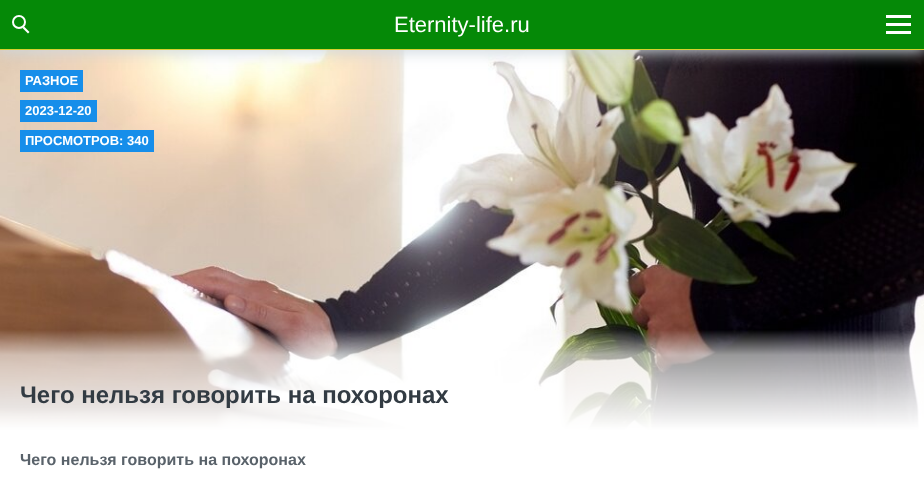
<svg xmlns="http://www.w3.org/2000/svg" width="924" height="479">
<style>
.a{font:22px Liberation Sans;fill:#fff}
.b{font:bold 13px Liberation Sans;fill:#fff}
.c{font:bold 24px Liberation Sans;fill:#323b43}
.d{font:bold 16px Liberation Sans;fill:#59626a}
</style>
<rect width="100%" height="100%" fill="#fff"/>
<image href="1.png" x="0" y="50" width="924" height="380"/>
<path fill="#168eea" d="M20 70h63v22H20z"/>
<path fill="#ced7df" filter="blur(7.5px)" d="M-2 -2h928v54H-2z"/>
<path fill="#058907" d="M0 0h924v49H0z"/>
<path fill="#d8d02d" d="M0 49h924v1H0z"/>
<circle fill="none" stroke="#fff" stroke-width="2" cx="19" cy="22" r="6"/>
<path fill="#fff" d="M24 26.5l5.5 5.5l-1.5 1.5l-5.5-5.5z"/>
<path fill="#fff" d="M886 15h25v3H886z"/>
<path fill="#fff" d="M886 23h25v3H886z"/>
<path fill="#fff" d="M886 31h25v3H886z"/>
<path fill="#168eea" d="M20 100h77v22H20z"/>
<path fill="#168eea" d="M20 130h134v22H20z"/>
<text class="a" x="394" y="32">Eternity-life.ru</text>
<text class="b" x="25" y="85">РАЗНОЕ</text>
<text class="b" x="25" y="115">2023-12-20</text>
<text class="b" x="25" y="145">ПРОСМОТРОВ: 340</text>
<text class="c" x="20" y="403">Чего нельзя говорить на похоронах</text>
<text class="d" x="20" y="465">Чего нельзя говорить на похоронах</text>
</svg>
